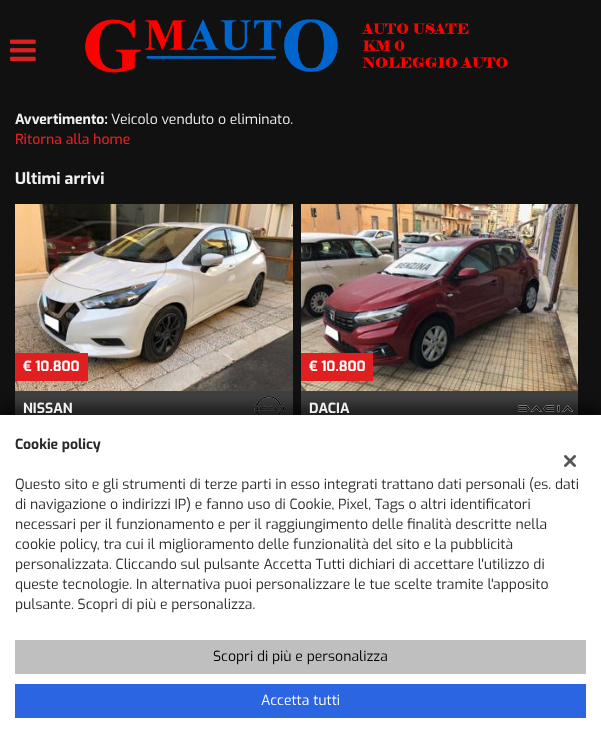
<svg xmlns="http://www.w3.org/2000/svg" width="601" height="748">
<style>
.a{font:bold 14px Exo;fill:#f0f0f0}
.b{font:14px Exo;fill:#f0f0f0}
.c{font:500 14px Exo;fill:#e02020}
.d{font:bold 16px Exo;fill:#f0f0f0}
.e{font:bold 14px Exo;fill:#fff}
.f{font:bold 14px Exo;fill:#2b2929}
.g{font:14px Exo;fill:#2b2929}
.h{font:14px Exo;fill:#000}
.i{font:14px Exo;fill:#fff}
</style>
<rect width="100%" height="100%" fill="#111"/>
<image href="1.png" x="10" y="39" width="26" height="22"/>
<image href="2.png" x="85" y="19" width="423" height="54"/>
<path fill="#404040" d="M15 391h278v24H15z"/>
<image href="3.png" x="15" y="204" width="278" height="187"/>
<path fill="#e02020" d="M15 353h73v28H15z"/>
<image href="4.png" x="253" y="396" width="31" height="19"/>
<path fill="#404040" d="M301 391h277v24H301z"/>
<image href="5.png" x="301" y="204" width="277" height="187"/>
<path fill="#e02020" d="M301 353h72v28H301z"/>
<image href="6.png" x="518" y="405" width="55" height="7"/>
<path fill="#00000080" filter="blur(6px)" d="M0 405h601v333H0z"/>
<path fill="#fff" d="M0 415h601v333H0z"/>
<path fill="#bfbfbf" d="M15 640h571v34H15z"/>
<path fill="#2c65e1" d="M15 684h571v34H15z"/>
<image href="7.png" x="564" y="455" width="12" height="12"/>
<text class="a" x="15" y="124">Avvertimento:</text>
<text class="b" x="111" y="124">Veicolo venduto o eliminato.</text>
<text class="c" x="15" y="144">Ritorna alla home</text>
<text class="d" x="15" y="184">Ultimi arrivi</text>
<text class="e" x="23" y="371">€ 10.800</text>
<text class="a" x="23" y="413">NISSAN</text>
<text class="e" x="309" y="371">€ 10.800</text>
<text class="a" x="309" y="413">DACIA</text>
<text class="f" x="15" y="449">Cookie policy</text>
<text class="g" x="15" y="489">Questo sito e gli strumenti di terze parti in esso integrati trattano dati personali (es. dati</text>
<text class="g" x="15" y="509">di navigazione o indirizzi IP) e fanno uso di Cookie, Pixel, Tags o altri identificatori</text>
<text class="g" x="15" y="529">necessari per il funzionamento e per il raggiungimento delle finalità descritte nella</text>
<text class="g" x="15" y="549">cookie policy, tra cui il miglioramento delle funzionalità del sito e la pubblicità</text>
<text class="g" x="15" y="569">personalizzata. Cliccando sul pulsante Accetta Tutti dichiari di accettare l'utilizzo di</text>
<text class="g" x="15" y="589">queste tecnologie. In alternativa puoi personalizzare le tue scelte tramite l'apposito</text>
<text class="g" x="15" y="609">pulsante. Scopri di più e personalizza.</text>
<text class="h" x="213" y="661">Scopri di più e personalizza</text>
<text class="i" x="261" y="705">Accetta tutti</text>
</svg>
